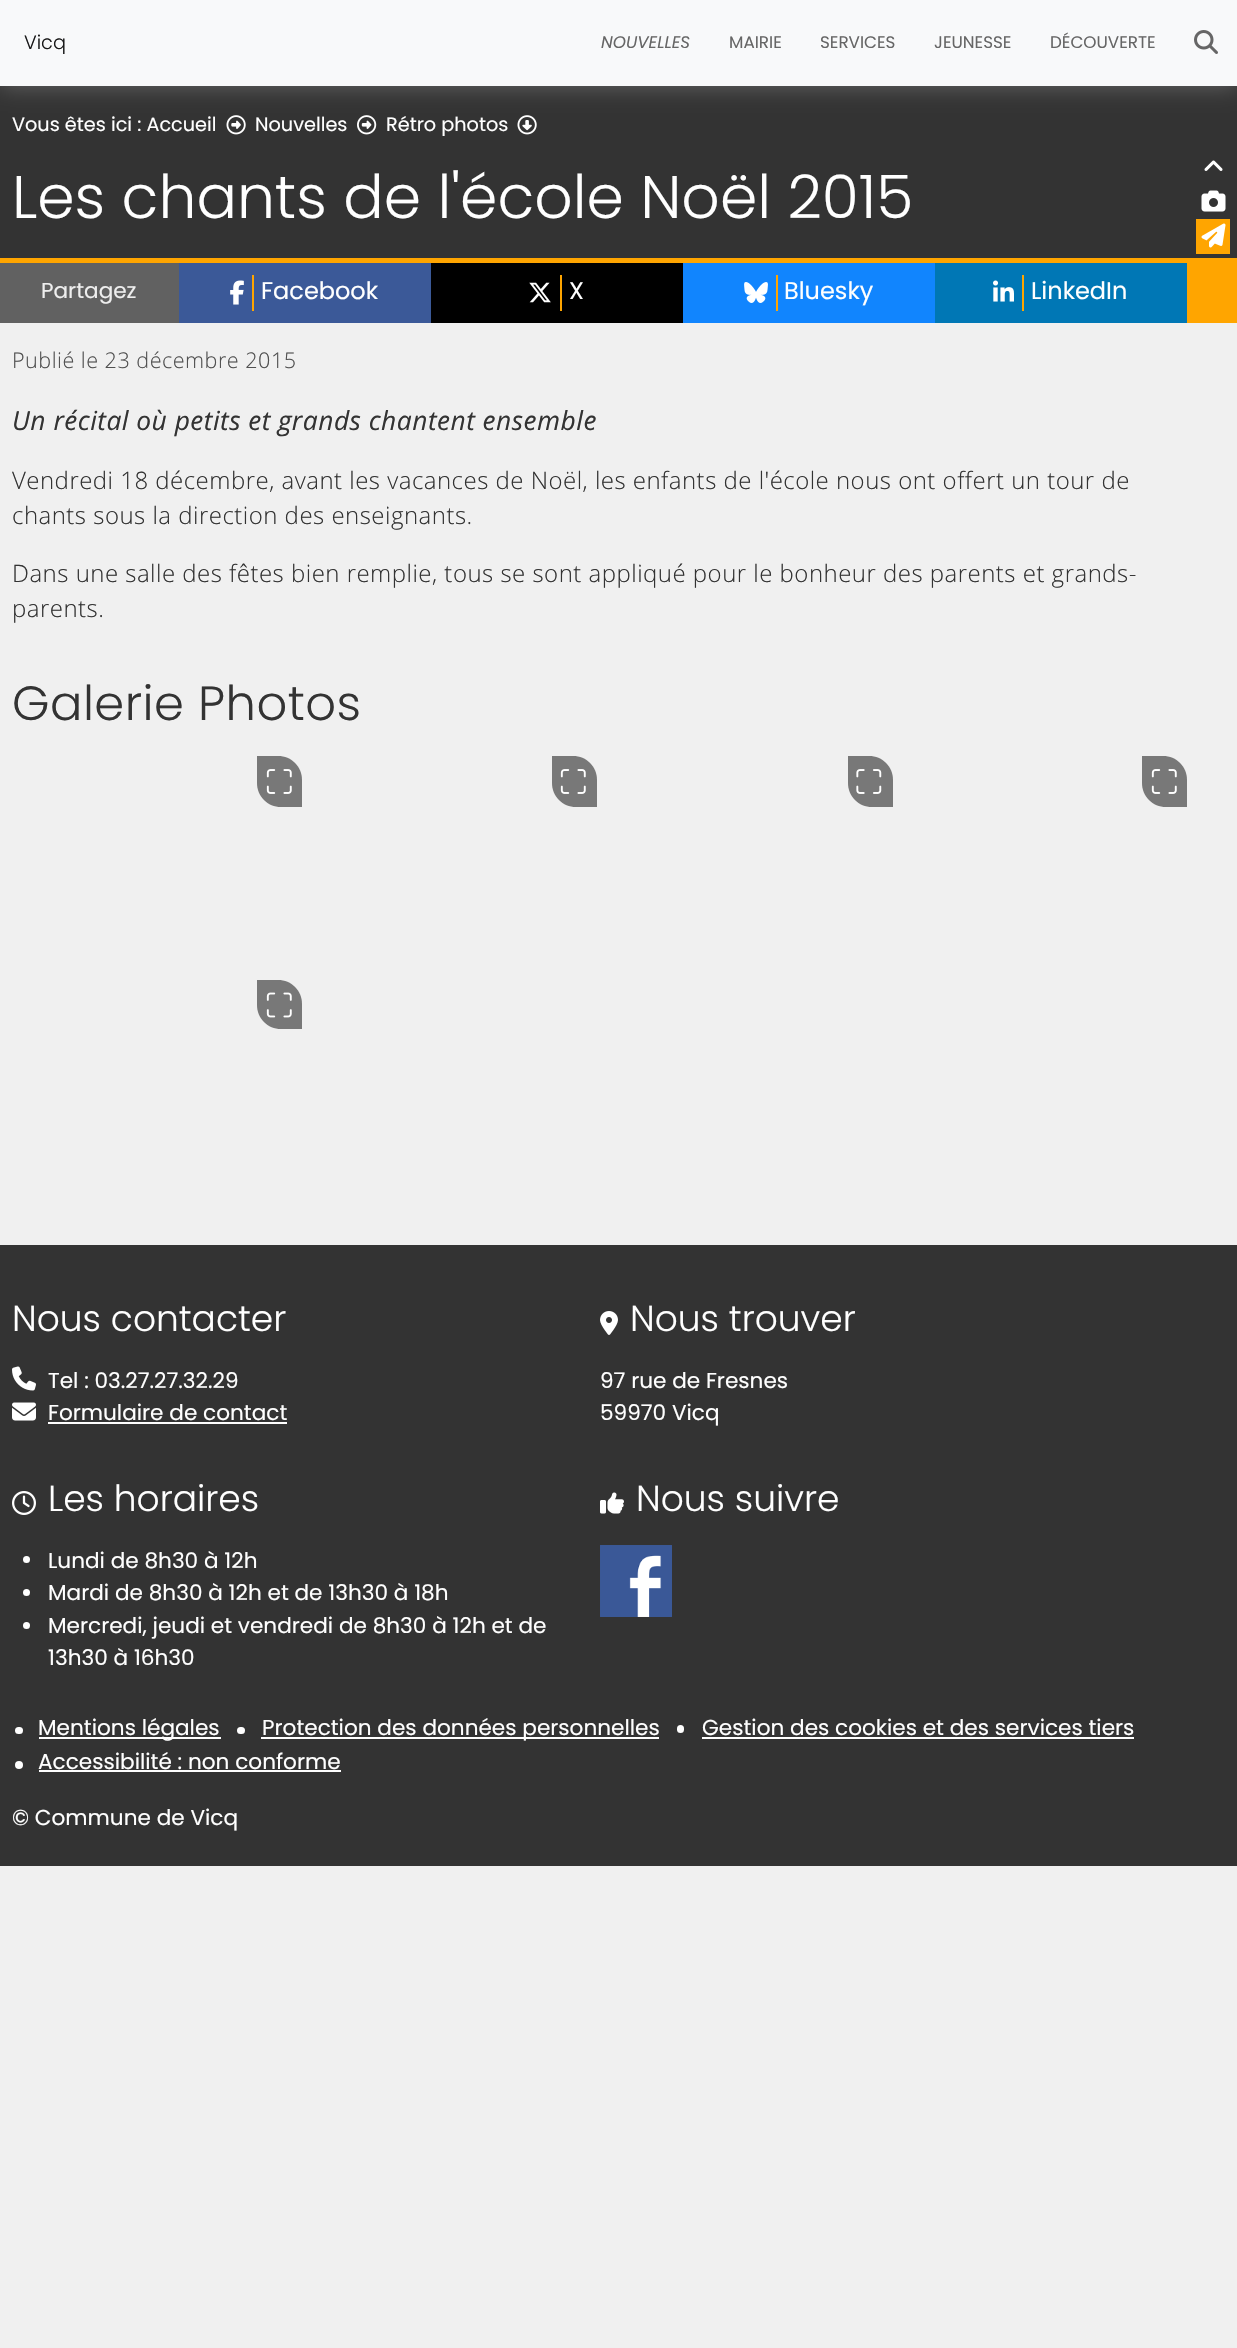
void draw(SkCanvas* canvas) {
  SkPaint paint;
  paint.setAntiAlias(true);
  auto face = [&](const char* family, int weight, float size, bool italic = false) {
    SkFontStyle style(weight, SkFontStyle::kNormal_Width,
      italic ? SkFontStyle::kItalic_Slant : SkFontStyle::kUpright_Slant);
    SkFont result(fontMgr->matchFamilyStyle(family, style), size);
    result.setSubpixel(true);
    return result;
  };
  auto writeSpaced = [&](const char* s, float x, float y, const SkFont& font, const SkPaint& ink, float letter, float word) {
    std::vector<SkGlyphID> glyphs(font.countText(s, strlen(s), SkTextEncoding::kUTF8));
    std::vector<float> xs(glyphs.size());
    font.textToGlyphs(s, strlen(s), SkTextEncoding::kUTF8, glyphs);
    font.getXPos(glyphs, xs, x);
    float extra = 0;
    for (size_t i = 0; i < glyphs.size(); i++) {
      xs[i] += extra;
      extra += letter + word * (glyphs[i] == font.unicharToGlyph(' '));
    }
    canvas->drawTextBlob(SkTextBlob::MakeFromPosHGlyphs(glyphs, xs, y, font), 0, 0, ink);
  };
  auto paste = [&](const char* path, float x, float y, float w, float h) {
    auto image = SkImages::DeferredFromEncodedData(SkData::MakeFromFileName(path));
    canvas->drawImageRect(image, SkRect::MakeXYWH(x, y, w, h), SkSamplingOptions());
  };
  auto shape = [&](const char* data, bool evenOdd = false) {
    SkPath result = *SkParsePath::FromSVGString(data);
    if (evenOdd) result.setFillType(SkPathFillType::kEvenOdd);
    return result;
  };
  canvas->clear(0xfff0f0f0);
  paint.setColor(0xff333333);
  canvas->drawRect(SkRect::MakeXYWH(0, 86, 1237, 172), paint);
  paste("img/2.png", 226, 115, 20, 20);
  paste("img/3.png", 357, 115, 20, 20);
  paste("img/4.png", 517, 115, 20, 20);
  paint.setColor(0xff666666);
  paint.setMaskFilter(SkMaskFilter::MakeBlur(kNormal_SkBlurStyle, 11));
  canvas->drawRect(SkRect::MakeXYWH(0, 0, 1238, 86), paint);
  paint.setMaskFilter(nullptr);
  paint.setColor(0xfff8f9fa);
  canvas->drawRect(SkRect::MakeXYWH(0, 0, 1237, 86), paint);
  paste("img/1.png", 1194, 30, 24, 24);
  {
    const struct { float x, y, w, h; SkColor color; } items[] = {
      {0, 258, 1187, 5, 0xffffa500},
      {1187, 258, 50, 65, 0xffffa500},
      {0, 263, 179, 60, 0xff616161},
      {179, 263, 252, 60, 0xff3b5998},
    };
    for (auto [x, y, w, h, color] : items) {
      paint.setColor(color);
      canvas->drawRect(SkRect::MakeXYWH(x, y, w, h), paint);
    }
  }
  paste("img/5.png", 230, 280, 14, 25);
  paint.setColor(0xffffa500);
  canvas->drawRect(SkRect::MakeXYWH(252, 275, 2, 36), paint);
  paint.setColor(0xff000000);
  canvas->drawRect(SkRect::MakeXYWH(431, 263, 252, 60), paint);
  paste("img/6.png", 529, 282, 22, 21);
  paint.setColor(0xffffa500);
  canvas->drawRect(SkRect::MakeXYWH(560, 275, 2, 36), paint);
  paint.setColor(0xff1185fe);
  canvas->drawRect(SkRect::MakeXYWH(683, 263, 252, 60), paint);
  paste("img/7.png", 744, 282, 24, 21);
  paint.setColor(0xffffa500);
  canvas->drawRect(SkRect::MakeXYWH(776, 275, 2, 36), paint);
  paint.setColor(0xff0077b5);
  canvas->drawRect(SkRect::MakeXYWH(935, 263, 252, 60), paint);
  paste("img/8.png", 993, 280, 21, 22);
  paint.setColor(0xffffa500);
  canvas->drawRect(SkRect::MakeXYWH(1022, 275, 2, 36), paint);
  paste("img/9.png", 1204, 160, 19, 11);
  paste("img/10.png", 1201, 190, 25, 22);
  canvas->drawRect(SkRect::MakeXYWH(1196, 219, 34, 35), paint);
  paste("img/11.png", 1201, 223, 25, 25);
  paint.setColor(0xff787878);
  canvas->drawPath(shape("M257 756H278C291.5 756 302 766.5 302 780V807H281C267.5 807 257 796.5 257 783Z"), paint);
  paste("img/12.png", 266, 769, 26, 25);
  canvas->drawPath(shape("M552 756H573C586.5 756 597 766.5 597 780V807H576C562.5 807 552 796.5 552 783Z"), paint);
  paste("img/12.png", 560, 769, 26, 25);
  canvas->drawPath(shape("M848 756H869C882.5 756 893 766.5 893 780V807H872C858.5 807 848 796.5 848 783Z"), paint);
  paste("img/13.png", 856, 769, 26, 25);
  canvas->drawPath(shape("M1142 756H1163C1176.5 756 1187 766.5 1187 780V807H1166C1152.5 807 1142 796.5 1142 783Z"), paint);
  paste("img/12.png", 1151, 769, 26, 25);
  canvas->drawPath(shape("M257 980H278C291.5 980 302 990.5 302 1004V1029H281C267.5 1029 257 1018.5 257 1005Z"), paint);
  paste("img/14.png", 266, 992, 26, 26);
  paint.setColor(0xff333333);
  canvas->drawRect(SkRect::MakeXYWH(0, 1245, 1237, 621), paint);
  paste("img/15.png", 12, 1366, 24, 25);
  paste("img/16.png", 12, 1402, 24, 19);
  paint.setColor(0xffffffff);
  canvas->drawRect(SkRect::MakeXYWH(48, 1422, 239, 2), paint);
  paste("img/17.png", 600, 1311, 18, 24);
  paste("img/18.png", 12, 1491, 24, 24);
  canvas->drawCircle(26.5f, 1559.5f, 3.5f, paint);
  canvas->drawCircle(26.5f, 1592.5f, 3.5f, paint);
  canvas->drawCircle(26.5f, 1625.5f, 3.5f, paint);
  paste("img/19.png", 600, 1492, 24, 22);
  paste("img/20.png", 600, 1545, 72, 72);
  canvas->drawRoundRect(SkRect::MakeXYWH(15, 1727, 8, 7), 3.5f, 3.5f, paint);
  canvas->drawRect(SkRect::MakeXYWH(39, 1737, 182, 2), paint);
  canvas->drawRoundRect(SkRect::MakeXYWH(237, 1727, 8, 7), 3.5f, 3.5f, paint);
  canvas->drawRect(SkRect::MakeXYWH(261, 1737, 398, 2), paint);
  canvas->drawRoundRect(SkRect::MakeXYWH(677, 1725, 7, 8), 3.5f, 3.5f, paint);
  canvas->drawRect(SkRect::MakeXYWH(702, 1737, 432, 2), paint);
  canvas->drawCircle(19, 1765, 4, paint);
  canvas->drawRect(SkRect::MakeXYWH(39, 1770, 302, 2), paint);
  auto f0 = face("Poppins", 300, 19.25f);
  paint.setColor(0xff191919);
  canvas->drawString("Vicq", 24, 49, f0, paint);
  auto f1 = face("Poppins", 400, 16.75f, true);
  paint.setColor(0xff666666);
  canvas->drawString("NOUVELLES", 601, 48, f1, paint);
  auto f2 = face("Poppins", 400, 16.75f);
  {
    const struct { const char* s; float x, y; } items[] = {
      {"MAIRIE", 729, 48},
      {"SERVICES", 820, 48},
      {"JEUNESSE", 934, 48},
      {"DÉCOUVERTE", 1050, 48},
    };
    for (auto [s, x, y] : items) {
      canvas->drawString(s, x, y, f2, paint);
    }
  }
  auto f3 = face("Poppins", 400, 19.25f);
  paint.setColor(0xffffffff);
  {
    const struct { const char* s; float x, y; } items[] = {
      {"Vous êtes ici : Accueil", 12, 131},
      {"Nouvelles", 255, 131},
      {"Rétro photos", 386, 131},
    };
    for (auto [s, x, y] : items) {
      canvas->drawString(s, x, y, f3, paint);
    }
  }
  auto f4 = face("Poppins", 300, 60);
  canvas->drawString("Les chants de l'école Noël 2015", 12, 218, f4, paint);
  auto f5 = face("Poppins", 400, 21.6f);
  paint.setColor(0xffeeeeee);
  canvas->drawString("Partagez", 41, 298, f5, paint);
  auto f6 = face("Poppins", 400, 24);
  paint.setColor(0xffffffff);
  {
    const struct { const char* s; float x, y; } items[] = {
      {"Facebook", 261, 299},
      {"X", 569, 299},
      {"Bluesky", 784, 299},
      {"LinkedIn", 1031, 299},
    };
    for (auto [s, x, y] : items) {
      canvas->drawString(s, x, y, f6, paint);
    }
  }
  auto f7 = face("Open Sans", 300, 21.6f);
  paint.setColor(0xff505050);
  writeSpaced("Publié le 23 décembre 2015", 12, 368, f7, paint, 0.48f, 0);
  auto f8 = face("Open Sans", 400, 26.4f, true);
  paint.setColor(0xff333333);
  writeSpaced("Un récital où petits et grands chantent ensemble", 12, 430, f8, paint, 0.48f, 0);
  auto f9 = face("Open Sans", 300, 24);
  {
    const struct { const char* s; float x, y; } items[] = {
      {"Vendredi 18 décembre, avant les vacances de Noël, les enfants de l'école nous ont offert un tour de", 12, 489},
      {"chants sous la direction des enseignants.", 12, 524},
      {"Dans une salle des fêtes bien remplie, tous se sont appliqué pour le bonheur des parents et grands-", 12, 582},
      {"parents.", 12, 617},
    };
    for (auto [s, x, y] : items) {
      writeSpaced(s, x, y, f9, paint, 0.48f, 0);
    }
  }
  auto f10 = face("Poppins", 300, 48);
  writeSpaced("Galerie Photos", 12, 720, f10, paint, 0.48f, 0);
  auto f11 = face("Poppins", 300, 36);
  paint.setColor(0xffffffff);
  canvas->drawString("Nous contacter", 12, 1331, f11, paint);
  canvas->drawString("Tel : 03.27.27.32.29", 48, 1388, f5, paint);
  canvas->drawString("Formulaire de contact", 48, 1420, f5, paint);
  canvas->drawString("Nous trouver", 630, 1331, f11, paint);
  canvas->drawString("97 rue de Fresnes", 600, 1388, f5, paint);
  canvas->drawString("59970 Vicq", 600, 1420, f5, paint);
  canvas->drawString("Les horaires", 48, 1511, f11, paint);
  {
    const struct { const char* s; float x, y; } items[] = {
      {"Lundi de 8h30 à 12h", 48, 1568},
      {"Mardi de 8h30 à 12h et de 13h30 à 18h", 48, 1600},
      {"Mercredi, jeudi et vendredi de 8h30 à 12h et de", 48, 1633},
      {"13h30 à 16h30", 48, 1665},
    };
    for (auto [s, x, y] : items) {
      canvas->drawString(s, x, y, f5, paint);
    }
  }
  canvas->drawString("Nous suivre", 636, 1511, f11, paint);
  {
    const struct { const char* s; float x, y; } items[] = {
      {"Mentions légales", 38, 1735},
      {"Protection des données personnelles", 262, 1735},
      {"Gestion des cookies et des services tiers", 702, 1735},
      {"Accessibilité : non conforme", 38, 1769},
      {"© Commune de Vicq", 12, 1825},
    };
    for (auto [s, x, y] : items) {
      canvas->drawString(s, x, y, f5, paint);
    }
  }
}
